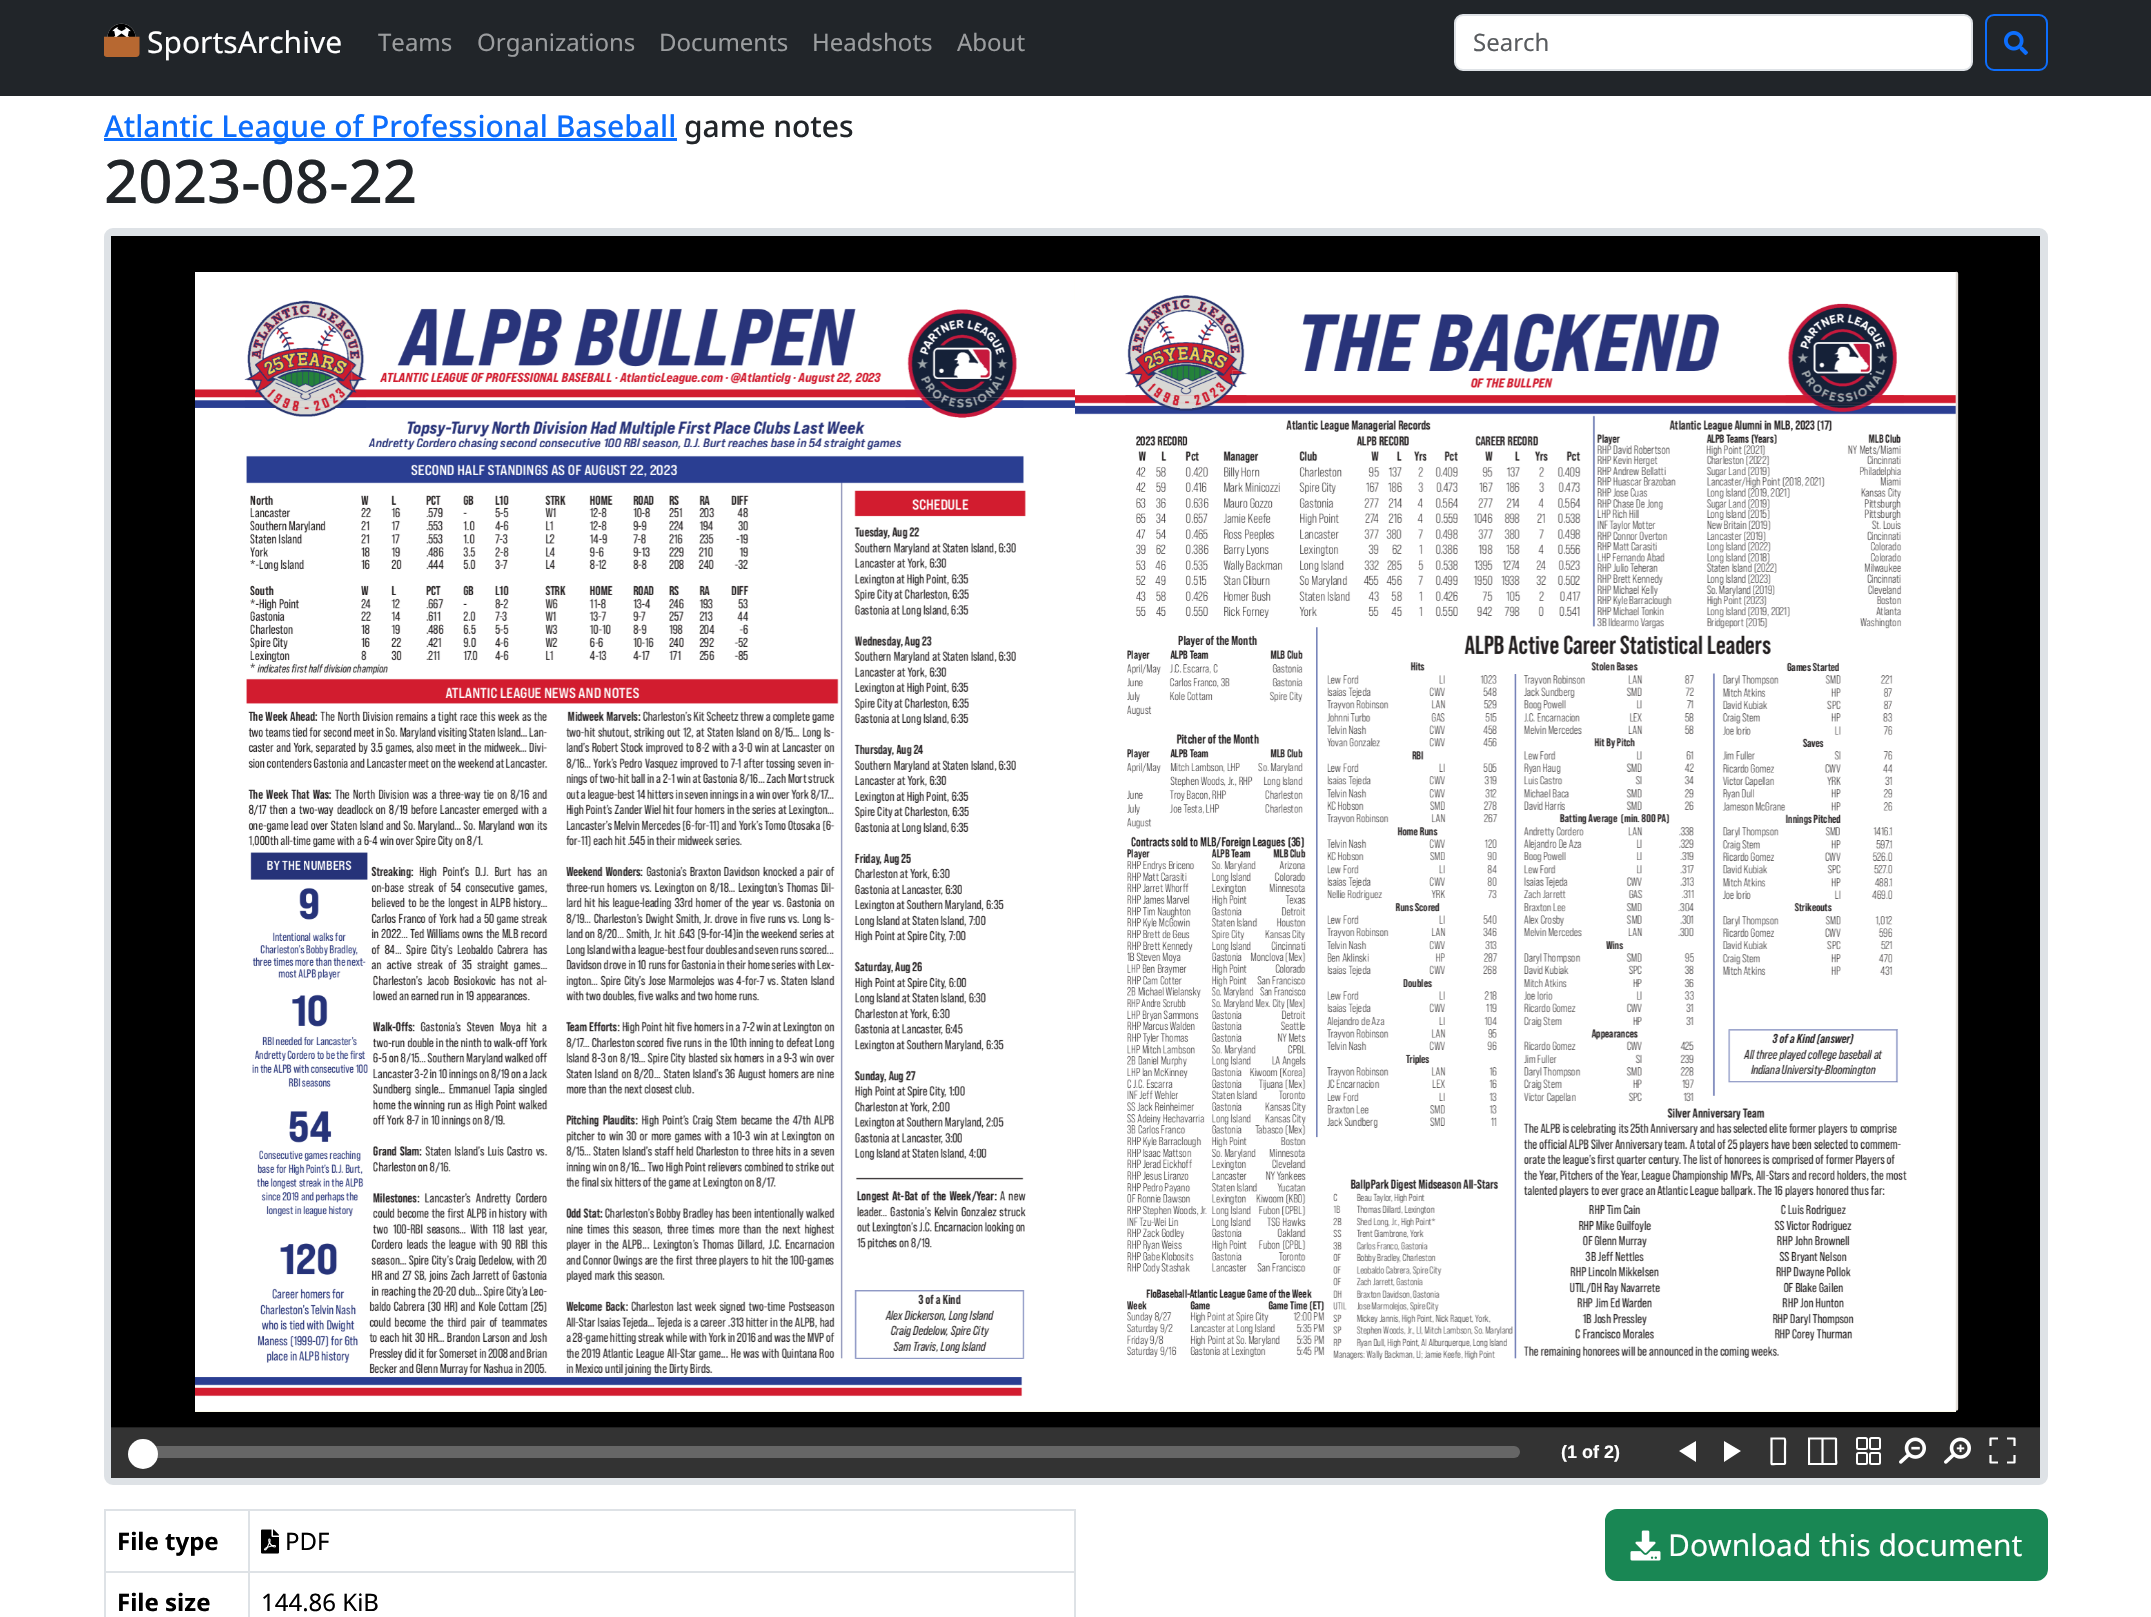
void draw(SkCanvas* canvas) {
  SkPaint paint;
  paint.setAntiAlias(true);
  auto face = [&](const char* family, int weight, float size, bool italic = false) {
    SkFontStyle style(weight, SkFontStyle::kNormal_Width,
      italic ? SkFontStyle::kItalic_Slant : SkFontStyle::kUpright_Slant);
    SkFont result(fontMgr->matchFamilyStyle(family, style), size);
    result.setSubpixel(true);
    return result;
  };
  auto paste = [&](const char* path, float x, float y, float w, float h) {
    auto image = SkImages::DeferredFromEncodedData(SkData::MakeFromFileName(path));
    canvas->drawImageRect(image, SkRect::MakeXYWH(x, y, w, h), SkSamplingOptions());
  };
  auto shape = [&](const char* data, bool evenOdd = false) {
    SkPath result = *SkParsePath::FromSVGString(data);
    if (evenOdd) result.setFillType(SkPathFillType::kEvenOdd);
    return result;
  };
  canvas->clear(0xff212529);
  paste("img/1.png", 104, 23, 36, 34);
  paint.setColor(0xffffffff);
  canvas->drawRoundRect(SkRect::MakeXYWH(1455, 15, 517, 55), 8, 8, paint);
  paint.setStroke(true);
  paint.setStrokeWidth(2);
  paint.setColor(0xffdee2e6);
  canvas->drawRoundRect(SkRect::MakeXYWH(1455, 15, 517, 55), 8, 8, paint);
  paint.setColor(0xff0d6efd);
  canvas->drawRoundRect(SkRect::MakeXYWH(1986, 15, 61, 55), 8, 8, paint);
  paste("img/2.png", 2004, 31, 24, 24);
  paint.setStroke(false);
  paint.setColor(0xffffffff);
  canvas->drawRect(SkRect::MakeXYWH(0, 96, 2151, 1521), paint);
  paint.setColor(0xff0d6efd);
  canvas->drawRect(SkRect::MakeXYWH(104, 138, 573, 3), paint);
  paint.setStroke(true);
  paint.setStrokeWidth(8);
  paint.setColor(0xffdee2e6);
  canvas->drawRoundRect(SkRect::MakeXYWH(108, 232, 1936, 1249), 5, 5, paint);
  paint.setStroke(false);
  paint.setColor(0xff000000);
  canvas->drawRect(SkRect::MakeXYWH(111, 236, 1929, 1191), paint);
  paint.setColor(0xfffefdeb);
  canvas->drawRect(SkRect::MakeXYWH(195, 272, 1761, 1140), paint);
  paste("img/3.png", 195, 272, 880, 1139);
  paste("img/4.png", 195, 300, 880, 1111);
  paste("img/6.png", 1955, 272, 1, 1139);
  paste("img/7.png", 1075, 272, 881, 1139);
  paste("img/5.png", 1955, 271, 4, 1140);
  paint.setColor(0xff222222);
  canvas->drawRect(SkRect::MakeXYWH(111, 1427, 1929, 1), paint);
  paint.setColor(0xff333333);
  canvas->drawRect(SkRect::MakeXYWH(111, 1428, 1929, 50), paint);
  paint.setColor(0xff666666);
  canvas->drawRoundRect(SkRect::MakeXYWH(141, 1446, 1379, 12), 6, 6, paint);
  paint.setColor(0xffffffff);
  canvas->drawCircle(143, 1454, 15, paint);
  canvas->drawPath(shape("M1679 1451L1696 1462V1441ZM1741 1451L1724 1462V1441Z", true), paint);
  paint.setStroke(true);
  paint.setStrokeWidth(2.2f);
  canvas->drawPath(shape("M1784.5 1438.5C1785.5 1438.5 1785 1446 1785 1447V1459.5C1785 1464 1786 1464 1782.5 1464H1776C1770.5 1464 1771.5 1465.5 1771.5 1459.5V1438.5H1772Z"), paint);
  canvas->save();
  canvas->clipRect(SkRect::MakeXYWH(1808, 1437, 30, 29));
  canvas->drawPath(shape("M1835.5 1438.5L1836 1439V1459.5C1836 1461 1837 1464 1835.5 1464H1809V1438.5H1809.5Z"), paint);
  canvas->restore();
  paint.setStrokeCap(SkPaint::kSquare_Cap);
  canvas->drawPath(shape("M1822.5 1440V1462.5"), paint);
  paint.setStrokeWidth(2);
  paint.setStrokeCap(SkPaint::kButt_Cap);
  canvas->drawRoundRect(SkRect::MakeXYWH(1857, 1438, 10, 11), 1.5f, 1.5f, paint);
  canvas->drawRoundRect(SkRect::MakeXYWH(1857, 1453, 10, 11), 1.5f, 1.5f, paint);
  canvas->drawRoundRect(SkRect::MakeXYWH(1870, 1438, 10, 11), 1.5f, 1.5f, paint);
  canvas->drawRoundRect(SkRect::MakeXYWH(1870, 1453, 10, 11), 1.5f, 1.5f, paint);
  paste("img/8.png", 1899, 1437, 27, 27);
  paste("img/9.png", 1944, 1437, 27, 27);
  paint.setStrokeWidth(2.2f);
  paint.setStrokeJoin(SkPaint::kRound_Join);
  canvas->drawPath(shape("M2007 1438.5H2014.5V1446M2007 1462.5H2014.5V1455M1998 1438.5H1990.5V1446M1998 1462.5H1990.5V1455"), paint);
  paint.setStroke(false);
  paint.setColor(0xffdee2e6);
  canvas->drawRect(SkRect::MakeXYWH(104, 1509, 972, 2), paint);
  paste("img/10.png", 261, 1529, 18, 25);
  {
    const struct { float x, y, w, h; SkColor color; } items[] = {
      {104, 1571, 972, 2, 0xffdee2e6},
      {104, 1509, 2, 108, 0xffdee2e6},
      {1074, 1509, 2, 108, 0xffdee2e6},
      {248, 1509, 2, 108, 0xffdee2e6},
    };
    for (auto [x, y, w, h, color] : items) {
      paint.setColor(color);
      canvas->drawRect(SkRect::MakeXYWH(x, y, w, h), paint);
    }
  }
  paint.setColor(0xff198754);
  canvas->drawRoundRect(SkRect::MakeXYWH(1606, 1510, 441, 70), 11, 11, paint);
  paint.setStroke(true);
  paint.setStrokeWidth(2);
  paint.setStrokeJoin(SkPaint::kMiter_Join);
  canvas->drawRoundRect(SkRect::MakeXYWH(1606, 1510, 441, 70), 11, 11, paint);
  paste("img/11.png", 1630, 1530, 31, 31);
  auto f0 = face("Noto Sans", 400, 30);
  paint.setStroke(false);
  paint.setColor(0xffffffff);
  canvas->drawString("SportsArchive", 147, 53, f0, paint);
  auto f1 = face("Noto Sans", 400, 24);
  paint.setColor(0xff9b9d9f);
  {
    const struct { const char* s; float x, y; } items[] = {
      {"Teams", 378, 51},
      {"Organizations", 477, 51},
      {"Documents", 659, 51},
      {"Headshots", 812, 51},
      {"About", 957, 51},
    };
    for (auto [s, x, y] : items) {
      canvas->drawString(s, x, y, f1, paint);
    }
  }
  paint.setColor(0xff595c5f);
  canvas->drawString("Search", 1473, 51, f1, paint);
  auto f2 = face("Noto Sans", 500, 30);
  paint.setColor(0xff0d6efd);
  canvas->drawString("Atlantic League of Professional Baseball", 104, 137, f2, paint);
  paint.setColor(0xff212529);
  canvas->drawString("game notes", 684, 137, f2, paint);
  auto f3 = face("Noto Sans", 500, 60);
  canvas->drawString("2023-08-22", 104, 203, f3, paint);
  auto f4 = face("Liberation Sans", 700, 18);
  paint.setColor(0xffffffff);
  canvas->drawString("(1 of 2)", 1561, 1458, f4, paint);
  auto f5 = face("Noto Sans", 700, 24);
  paint.setColor(0xff000000);
  canvas->drawString("File type", 117, 1550, f5, paint);
  canvas->drawString("PDF", 285, 1550, f1, paint);
  canvas->drawString("File size", 117, 1611, f5, paint);
  canvas->drawString("144.86 KiB", 261, 1611, f1, paint);
  paint.setColor(0xffffffff);
  canvas->drawString("Download this document", 1668, 1556, f0, paint);
}
